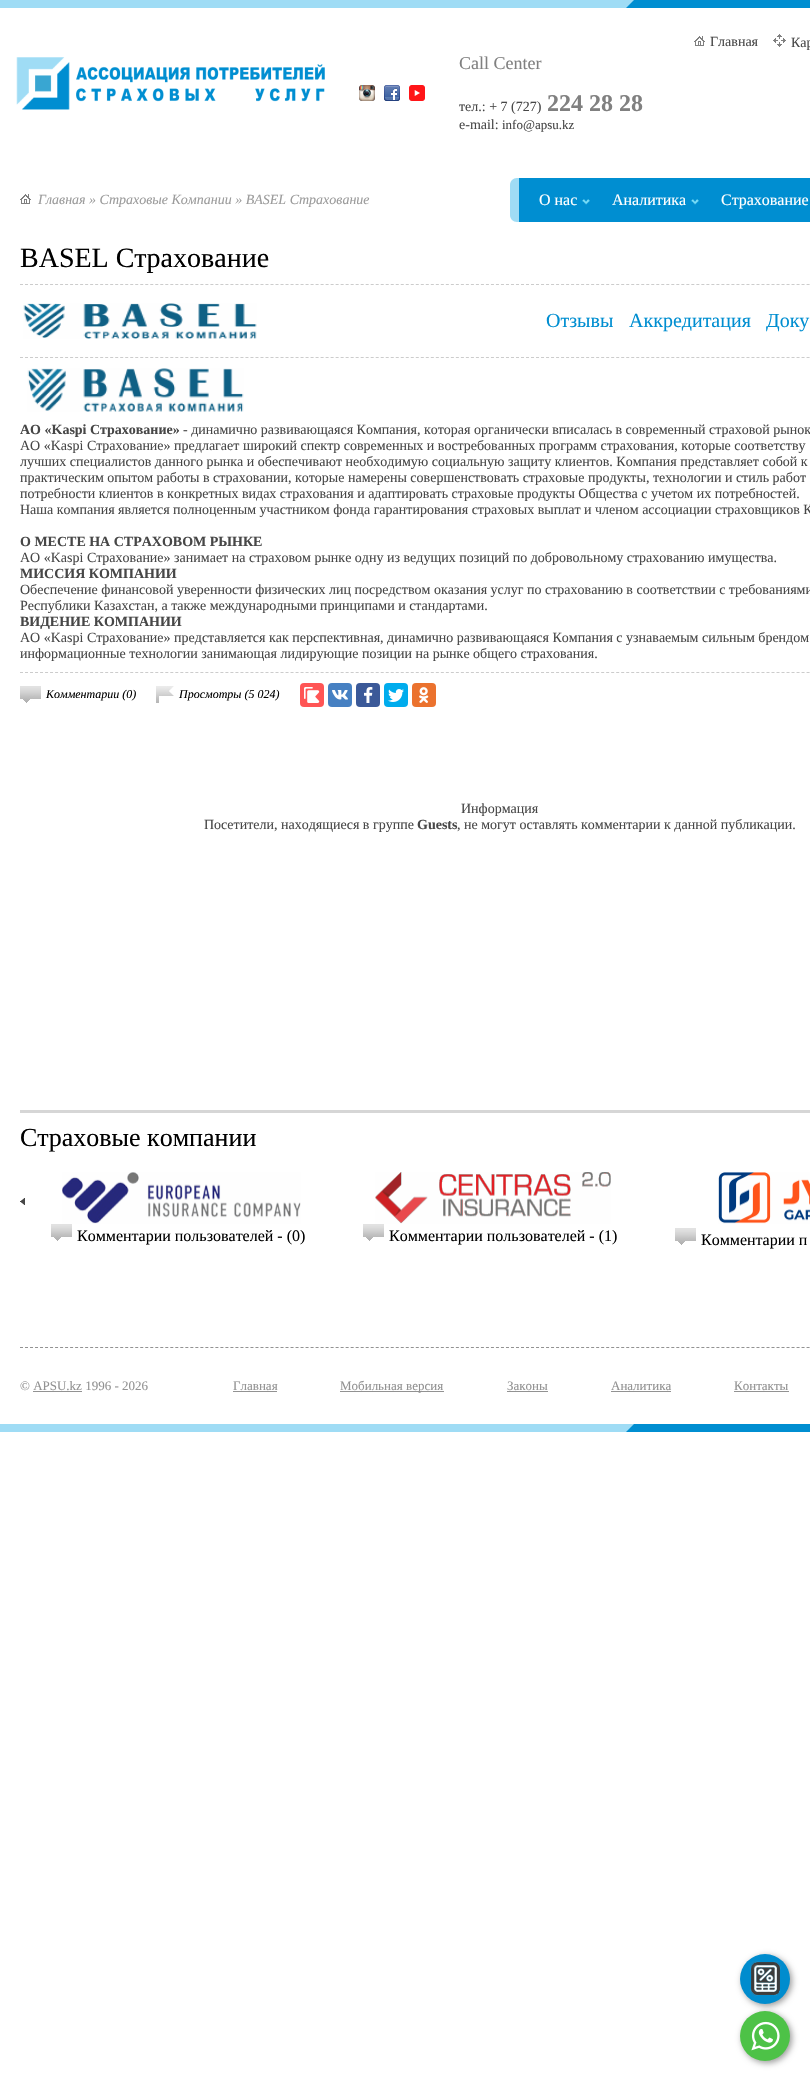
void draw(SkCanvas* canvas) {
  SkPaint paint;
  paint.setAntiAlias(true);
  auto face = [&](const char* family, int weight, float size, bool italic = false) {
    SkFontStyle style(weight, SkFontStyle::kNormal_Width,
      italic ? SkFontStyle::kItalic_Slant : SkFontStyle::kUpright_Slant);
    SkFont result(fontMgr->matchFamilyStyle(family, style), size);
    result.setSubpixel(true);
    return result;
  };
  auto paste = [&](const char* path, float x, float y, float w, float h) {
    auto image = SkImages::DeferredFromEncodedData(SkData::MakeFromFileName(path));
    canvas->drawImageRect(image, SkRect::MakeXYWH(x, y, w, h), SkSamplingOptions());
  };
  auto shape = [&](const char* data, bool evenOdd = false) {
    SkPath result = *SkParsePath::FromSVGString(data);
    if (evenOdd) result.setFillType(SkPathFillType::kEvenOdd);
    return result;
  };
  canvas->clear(0xffffffff);
  paint.setColor(0xff9fdcf5);
  canvas->drawRect(SkRect::MakeXYWH(0, 0, 615, 8), paint);
  paste("img/1.png", 615, 0, 30, 8);
  paint.setColor(0xff008ed1);
  canvas->drawRect(SkRect::MakeXYWH(645, 0, 165, 8), paint);
  paste("img/2.png", 694, 36, 11, 10);
  paste("img/3.png", 773, 34, 13, 13);
  paste("img/4.png", 16, 57, 309, 53);
  paste("img/5.png", 359, 85, 16, 16);
  paste("img/6.png", 384, 85, 16, 16);
  paste("img/7.png", 409, 85, 16, 16);
  paste("img/2.png", 20, 194, 11, 10);
  paint.setColor(0xff9fdcf5);
  canvas->drawPath(shape("M517 178H519V222H517C513 222 510 219 510 215V185C510 181 513 178 517 178Z"), paint);
  paint.setColor(0xff008ed1);
  canvas->drawRect(SkRect::MakeXYWH(519, 178, 291, 44), paint);
  paste("img/8.png", 582, 199, 8, 6);
  paste("img/9.png", 691, 199, 8, 6);
  paint.setStroke(true);
  paint.setStrokeWidth(1);
  paint.setColor(0xffcccccc);
  paint.setPathEffect(SkDashPathEffect::Make({{3, 2.01f}}, 0));
  canvas->drawPath(shape("M20 284.5H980"), paint);
  paint.setPathEffect(nullptr);
  paste("img/10.png", 23, 303, 234, 36);
  paint.setPathEffect(SkDashPathEffect::Make({{3, 2.01f}}, 0));
  canvas->drawPath(shape("M20 357.5H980"), paint);
  paint.setPathEffect(nullptr);
  paste("img/11.png", 27, 368, 217, 44);
  paint.setPathEffect(SkDashPathEffect::Make({{3, 2.01f}}, 0));
  canvas->drawPath(shape("M20 672.5H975"), paint);
  paint.setPathEffect(nullptr);
  paste("img/12.png", 20, 686, 21, 17);
  paste("img/13.png", 156, 686, 18, 17);
  paint.setStroke(false);
  paint.setColor(0xffff5555);
  canvas->drawRoundRect(SkRect::MakeXYWH(300, 683, 24, 24), 4, 4, paint);
  paste("img/14.png", 304, 687, 16, 16);
  paint.setColor(0xff4680c2);
  canvas->drawRoundRect(SkRect::MakeXYWH(328, 683, 24, 24), 4, 4, paint);
  paste("img/15.png", 332, 690, 16, 10);
  paint.setColor(0xff3b5998);
  canvas->drawRoundRect(SkRect::MakeXYWH(356, 683, 24, 24), 4, 4, paint);
  paste("img/16.png", 364, 687, 9, 16);
  paint.setColor(0xff00aced);
  canvas->drawRoundRect(SkRect::MakeXYWH(384, 683, 24, 24), 4, 4, paint);
  paste("img/17.png", 388, 689, 16, 13);
  paint.setColor(0xffeb722e);
  canvas->drawRoundRect(SkRect::MakeXYWH(412, 683, 24, 24), 4, 4, paint);
  paste("img/18.png", 419, 687, 10, 16);
  paint.setColor(0xffd6d6d6);
  canvas->drawRect(SkRect::MakeXYWH(20, 1110, 790, 3), paint);
  paste("img/19.png", 20, 1198, 5, 7);
  paste("img/20.png", 62, 1172, 239, 52);
  paste("img/12.png", 51, 1224, 21, 17);
  paste("img/21.png", 375, 1172, 236, 52);
  paste("img/12.png", 363, 1224, 21, 17);
  paste("img/22.png", 718, 1172, 92, 52);
  paste("img/12.png", 675, 1228, 21, 17);
  paint.setStroke(true);
  paint.setColor(0xff929292);
  paint.setPathEffect(SkDashPathEffect::Make({{3, 2.01f}}, 0));
  canvas->drawPath(shape("M20 1347.5H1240"), paint);
  paint.setPathEffect(nullptr);
  paint.setStroke(false);
  {
    const struct { float x, y, w, h; SkColor color; } items[] = {
      {33, 1391, 49, 1, 0xff929292},
      {233, 1391, 44, 1, 0xff929292},
      {340, 1391, 104, 1, 0xff929292},
      {507, 1391, 41, 1, 0xff929292},
      {611, 1391, 60, 1, 0xff929292},
      {734, 1391, 55, 1, 0xff929292},
      {0, 1424, 615, 8, 0xff9fdcf5},
    };
    for (auto [x, y, w, h, color] : items) {
      paint.setColor(color);
      canvas->drawRect(SkRect::MakeXYWH(x, y, w, h), paint);
    }
  }
  paste("img/1.png", 615, 1424, 30, 8);
  paint.setColor(0xff008ed1);
  canvas->drawRect(SkRect::MakeXYWH(645, 1424, 165, 8), paint);
  paint.setColor(0x66000000);
  paint.setMaskFilter(SkMaskFilter::MakeBlur(kNormal_SkBlurStyle, 3));
  canvas->drawRoundRect(SkRect::MakeXYWH(742, 1956, 50, 50), 25, 25, paint);
  paint.setMaskFilter(nullptr);
  paste("img/23.png", 740, 1954, 50, 50);
  paint.setMaskFilter(SkMaskFilter::MakeBlur(kNormal_SkBlurStyle, 3));
  canvas->drawRoundRect(SkRect::MakeXYWH(742, 2013, 50, 50), 25, 25, paint);
  paint.setMaskFilter(nullptr);
  paint.setColor(0xff4dc247);
  canvas->drawCircle(765, 2036, 25, paint);
  paste("img/24.png", 751, 2021, 29, 30);
  auto f0 = face("Liberation Serif", 400, 14);
  paint.setColor(0xff474747);
  canvas->drawString("Главная", 710, 46, f0, paint);
  canvas->drawString("Кар", 791, 47, f0, paint);
  auto f1 = face("Liberation Serif", 400, 18);
  paint.setColor(0xff808080);
  canvas->drawString("Call Center", 459, 69, f1, paint);
  paint.setColor(0xff474747);
  canvas->drawString("тел.: + 7 (727)", 459, 111, f0, paint);
  auto f2 = face("Liberation Serif", 700, 24);
  paint.setColor(0xff808080);
  canvas->drawString("224 28 28", 547, 111, f2, paint);
  paint.setColor(0xff474747);
  canvas->drawString("e-mail:", 459, 129, f0, paint);
  auto f3 = face("Liberation Serif", 400, 13);
  canvas->drawString("info@apsu.kz", 502, 129, f3, paint);
  auto f4 = face("Liberation Serif", 400, 14, true);
  paint.setColor(0xff9b9b9b);
  canvas->drawString("Главная » Страховые Компании » BASEL Страхование", 38, 204, f4, paint);
  auto f5 = face("Liberation Serif", 400, 16);
  paint.setColor(0xffffffff);
  {
    const struct { const char* s; float x, y; } items[] = {
      {"О нас", 539, 205},
      {"Аналитика", 612, 205},
      {"Страхование", 721, 205},
    };
    for (auto [s, x, y] : items) {
      canvas->drawString(s, x, y, f5, paint);
    }
  }
  auto f6 = face("Liberation Serif", 400, 28);
  paint.setColor(0xff000000);
  canvas->drawString("BASEL Страхование", 20, 267, f6, paint);
  auto f7 = face("Liberation Serif", 400, 20);
  paint.setColor(0xff008ed1);
  {
    const struct { const char* s; float x, y; } items[] = {
      {"Отзывы", 546, 327},
      {"Аккредитация", 629, 327},
      {"Доку", 766, 327},
    };
    for (auto [s, x, y] : items) {
      canvas->drawString(s, x, y, f7, paint);
    }
  }
  auto f8 = face("Liberation Serif", 700, 14);
  paint.setColor(0xff474747);
  canvas->drawString("АО «Kaspi Страхование»", 20, 434, f8, paint);
  {
    const struct { const char* s; float x, y; } items[] = {
      {"- динамично развивающаяся Компания, которая органически вписалась в современный страховой рынок", 183, 434},
      {"АО «Kaspi Страхование» предлагает широкий спектр современных и востребованных программ страхования, которые соответству", 20, 450},
      {"лучших специалистов данного рынка и обеспечивают необходимую социальную защиту клиентов. Компания представляет собой к", 20, 466},
      {"практическим опытом работы в страховании, которые намерены совершенствовать страховые продукты, технологии и стиль работ", 20, 482},
      {"потребности клиентов в конкретных видах страхования и адаптировать страховые продукты Общества с учетом их потребностей.", 20, 498},
      {"Наша компания является полноценным участником фонда гарантирования страховых выплат и членом ассоциации страховщиков К", 20, 514},
    };
    for (auto [s, x, y] : items) {
      canvas->drawString(s, x, y, f0, paint);
    }
  }
  canvas->drawString("О МЕСТЕ НА СТРАХОВОМ РЫНКЕ", 20, 546, f8, paint);
  canvas->drawString("АО «Kaspi Страхование» занимает на страховом рынке одну из ведущих позиций по добровольному страхованию имущества.", 20, 562, f0, paint);
  canvas->drawString("МИССИЯ КОМПАНИИ", 20, 578, f8, paint);
  canvas->drawString("Обеспечение финансовой уверенности физических лиц посредством оказания услуг по страхованию в соответствии с требованиями", 20, 594, f0, paint);
  canvas->drawString("Республики Казахстан, а также международными принципами и стандартами.", 20, 610, f0, paint);
  canvas->drawString("ВИДЕНИЕ КОМПАНИИ", 20, 626, f8, paint);
  canvas->drawString("АО «Kaspi Страхование» представляется как перспективная, динамично развивающаяся Компания с узнаваемым сильным брендом", 20, 642, f0, paint);
  canvas->drawString("информационные технологии занимающая лидирующие позиции на рынке общего страхования.", 20, 658, f0, paint);
  auto f9 = face("Liberation Serif", 400, 12, true);
  paint.setColor(0xff000000);
  canvas->drawString("Комментарии (0)", 46, 698, f9, paint);
  canvas->drawString("Просмотры (5 024)", 179, 698, f9, paint);
  paint.setColor(0xff474747);
  canvas->drawString("Информация", 461, 813, f0, paint);
  canvas->drawString("Посетители, находящиеся в группе", 204, 829, f0, paint);
  canvas->drawString("Guests", 417, 829, f8, paint);
  canvas->drawString(", не могут оставлять комментарии к данной публикации.", 457, 829, f0, paint);
  auto f10 = face("Liberation Serif", 400, 26);
  paint.setColor(0xff000000);
  canvas->drawString("Страховые компании", 20, 1146, f10, paint);
  {
    const struct { const char* s; float x, y; } items[] = {
      {"Комментарии пользователей - (0)", 77, 1241},
      {"Комментарии пользователей - (1)", 389, 1241},
      {"Комментарии п", 701, 1245},
    };
    for (auto [s, x, y] : items) {
      canvas->drawString(s, x, y, f5, paint);
    }
  }
  paint.setColor(0xff929292);
  {
    const struct { const char* s; float x, y; } items[] = {
      {"© APSU.kz 1996 - 2026", 20, 1390},
      {"Главная", 233, 1390},
      {"Мобильная версия", 340, 1390},
      {"Законы", 507, 1390},
      {"Аналитика", 611, 1390},
      {"Контакты", 734, 1390},
    };
    for (auto [s, x, y] : items) {
      canvas->drawString(s, x, y, f3, paint);
    }
  }
}
